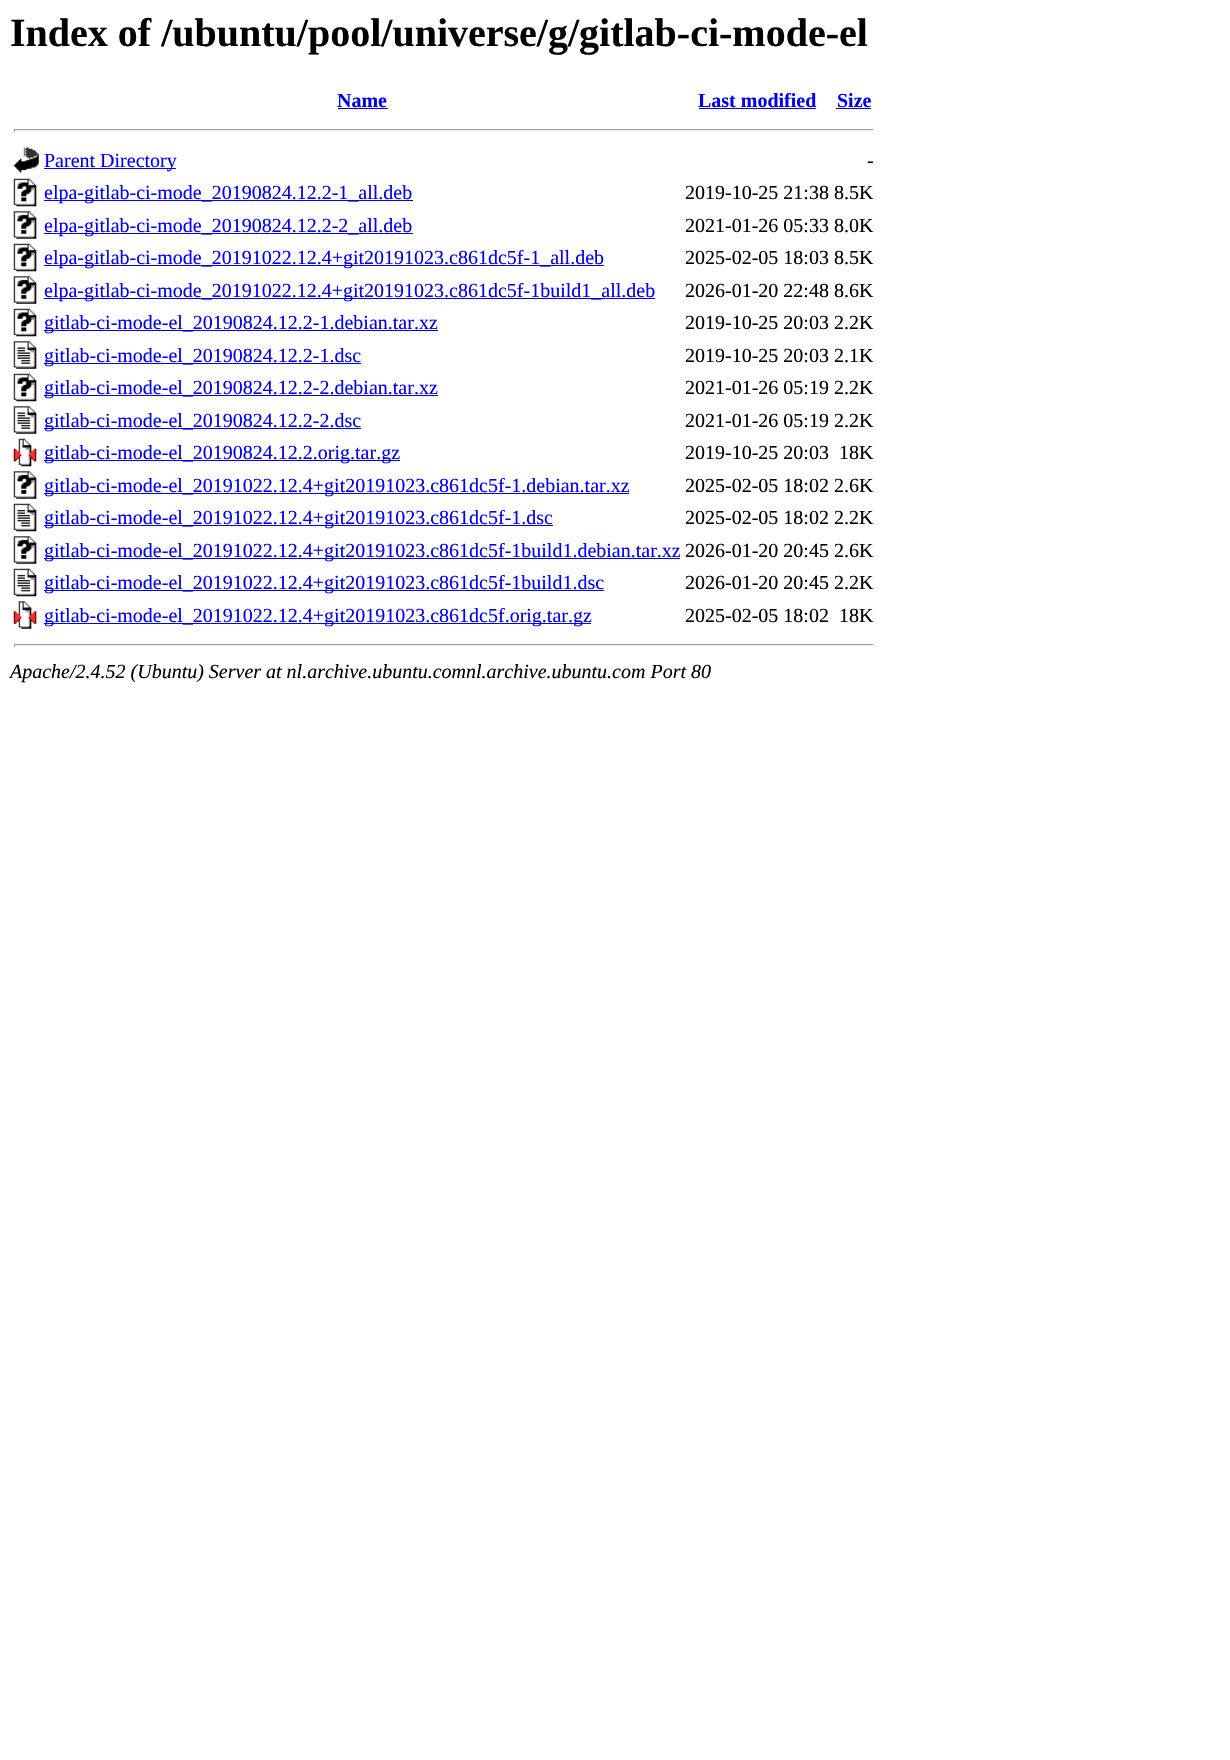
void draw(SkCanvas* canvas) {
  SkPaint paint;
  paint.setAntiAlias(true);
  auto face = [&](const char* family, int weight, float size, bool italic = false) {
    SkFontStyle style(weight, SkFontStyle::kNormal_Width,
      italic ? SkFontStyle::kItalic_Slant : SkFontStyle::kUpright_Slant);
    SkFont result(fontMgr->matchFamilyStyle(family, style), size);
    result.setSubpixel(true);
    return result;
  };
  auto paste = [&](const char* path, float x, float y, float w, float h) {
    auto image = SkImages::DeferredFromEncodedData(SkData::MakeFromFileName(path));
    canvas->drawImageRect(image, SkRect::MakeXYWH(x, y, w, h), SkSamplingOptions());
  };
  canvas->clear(0xffffffff);
  {
    const struct { float x, y, w, h; SkColor color; } items[] = {
      {338, 108, 50, 1, 0xff0000ee},
      {699, 108, 117, 1, 0xff0000ee},
      {836, 108, 35, 1, 0xff0000ee},
      {14, 129, 860, 1, 0xff9f9f9f},
      {873, 129, 1, 3, 0xffeeeeee},
      {14, 130, 860, 1, 0xffeeeeee},
      {14, 129, 1, 3, 0xff9f9f9f},
    };
    for (auto [x, y, w, h, color] : items) {
      paint.setColor(color);
      canvas->drawRect(SkRect::MakeXYWH(x, y, w, h), paint);
    }
  }
  paste("img/1.png", 13, 147, 26, 26);
  paint.setColor(0xff0000ee);
  canvas->drawRect(SkRect::MakeXYWH(44, 168, 132, 1), paint);
  paste("img/2.png", 13, 178, 24, 29);
  canvas->drawRect(SkRect::MakeXYWH(44, 200, 369, 1), paint);
  paste("img/3.png", 13, 211, 24, 28);
  canvas->drawRect(SkRect::MakeXYWH(44, 233, 369, 1), paint);
  paste("img/2.png", 13, 243, 24, 29);
  canvas->drawRect(SkRect::MakeXYWH(44, 265, 560, 1), paint);
  paste("img/4.png", 13, 276, 24, 28);
  canvas->drawRect(SkRect::MakeXYWH(44, 298, 611, 1), paint);
  paste("img/2.png", 13, 308, 24, 29);
  canvas->drawRect(SkRect::MakeXYWH(44, 330, 394, 1), paint);
  paste("img/5.png", 13, 341, 24, 28);
  canvas->drawRect(SkRect::MakeXYWH(44, 363, 317, 1), paint);
  paste("img/2.png", 13, 373, 24, 29);
  canvas->drawRect(SkRect::MakeXYWH(44, 395, 394, 1), paint);
  paste("img/5.png", 13, 406, 24, 28);
  canvas->drawRect(SkRect::MakeXYWH(44, 428, 317, 1), paint);
  paste("img/6.png", 13, 438, 24, 29);
  canvas->drawRect(SkRect::MakeXYWH(44, 460, 356, 1), paint);
  paste("img/3.png", 13, 471, 24, 28);
  canvas->drawRect(SkRect::MakeXYWH(44, 493, 585, 1), paint);
  paste("img/7.png", 13, 503, 24, 29);
  canvas->drawRect(SkRect::MakeXYWH(44, 525, 509, 1), paint);
  paste("img/3.png", 13, 536, 24, 28);
  canvas->drawRect(SkRect::MakeXYWH(44, 558, 636, 1), paint);
  paste("img/7.png", 13, 568, 24, 29);
  canvas->drawRect(SkRect::MakeXYWH(44, 590, 560, 1), paint);
  paste("img/8.png", 13, 601, 24, 28);
  {
    const struct { float x, y, w, h; SkColor color; } items[] = {
      {44, 623, 547, 1, 0xff0000ee},
      {14, 644, 860, 1, 0xff9f9f9f},
      {873, 644, 1, 3, 0xffeeeeee},
      {14, 645, 860, 1, 0xffeeeeee},
      {14, 644, 1, 3, 0xff9f9f9f},
    };
    for (auto [x, y, w, h, color] : items) {
      paint.setColor(color);
      canvas->drawRect(SkRect::MakeXYWH(x, y, w, h), paint);
    }
  }
  auto f0 = face("Liberation Serif", 700, 40);
  paint.setColor(0xff000000);
  canvas->drawString("Index of /ubuntu/pool/universe/g/gitlab-ci-mode-el", 10, 46, f0, paint);
  auto f1 = face("Liberation Serif", 700, 20);
  paint.setColor(0xff0000ee);
  {
    const struct { const char* s; float x, y; } items[] = {
      {"Name", 337, 107},
      {"Last modified", 698, 107},
      {"Size", 837, 107},
    };
    for (auto [s, x, y] : items) {
      canvas->drawString(s, x, y, f1, paint);
    }
  }
  auto f2 = face("Liberation Serif", 400, 20);
  canvas->drawString("Parent Directory", 44, 167, f2, paint);
  paint.setColor(0xff000000);
  canvas->drawString("-", 867, 167, f2, paint);
  paint.setColor(0xff0000ee);
  canvas->drawString("elpa-gitlab-ci-mode_20190824.12.2-1_all.deb", 44, 199, f2, paint);
  paint.setColor(0xff000000);
  canvas->drawString("2019-10-25 21:38 8.5K", 685, 199, f2, paint);
  paint.setColor(0xff0000ee);
  canvas->drawString("elpa-gitlab-ci-mode_20190824.12.2-2_all.deb", 44, 232, f2, paint);
  paint.setColor(0xff000000);
  canvas->drawString("2021-01-26 05:33 8.0K", 685, 232, f2, paint);
  paint.setColor(0xff0000ee);
  canvas->drawString("elpa-gitlab-ci-mode_20191022.12.4+git20191023.c861dc5f-1_all.deb", 44, 264, f2, paint);
  paint.setColor(0xff000000);
  canvas->drawString("2025-02-05 18:03 8.5K", 685, 264, f2, paint);
  paint.setColor(0xff0000ee);
  canvas->drawString("elpa-gitlab-ci-mode_20191022.12.4+git20191023.c861dc5f-1build1_all.deb", 44, 297, f2, paint);
  paint.setColor(0xff000000);
  canvas->drawString("2026-01-20 22:48 8.6K", 685, 297, f2, paint);
  paint.setColor(0xff0000ee);
  canvas->drawString("gitlab-ci-mode-el_20190824.12.2-1.debian.tar.xz", 44, 329, f2, paint);
  paint.setColor(0xff000000);
  canvas->drawString("2019-10-25 20:03 2.2K", 685, 329, f2, paint);
  paint.setColor(0xff0000ee);
  canvas->drawString("gitlab-ci-mode-el_20190824.12.2-1.dsc", 44, 362, f2, paint);
  paint.setColor(0xff000000);
  canvas->drawString("2019-10-25 20:03 2.1K", 685, 362, f2, paint);
  paint.setColor(0xff0000ee);
  canvas->drawString("gitlab-ci-mode-el_20190824.12.2-2.debian.tar.xz", 44, 394, f2, paint);
  paint.setColor(0xff000000);
  canvas->drawString("2021-01-26 05:19 2.2K", 685, 394, f2, paint);
  paint.setColor(0xff0000ee);
  canvas->drawString("gitlab-ci-mode-el_20190824.12.2-2.dsc", 44, 427, f2, paint);
  paint.setColor(0xff000000);
  canvas->drawString("2021-01-26 05:19 2.2K", 685, 427, f2, paint);
  paint.setColor(0xff0000ee);
  canvas->drawString("gitlab-ci-mode-el_20190824.12.2.orig.tar.gz", 44, 459, f2, paint);
  paint.setColor(0xff000000);
  canvas->drawString("2019-10-25 20:03", 685, 459, f2, paint);
  canvas->drawString("18K", 839, 459, f2, paint);
  paint.setColor(0xff0000ee);
  canvas->drawString("gitlab-ci-mode-el_20191022.12.4+git20191023.c861dc5f-1.debian.tar.xz", 44, 492, f2, paint);
  paint.setColor(0xff000000);
  canvas->drawString("2025-02-05 18:02 2.6K", 685, 492, f2, paint);
  paint.setColor(0xff0000ee);
  canvas->drawString("gitlab-ci-mode-el_20191022.12.4+git20191023.c861dc5f-1.dsc", 44, 524, f2, paint);
  paint.setColor(0xff000000);
  canvas->drawString("2025-02-05 18:02 2.2K", 685, 524, f2, paint);
  paint.setColor(0xff0000ee);
  canvas->drawString("gitlab-ci-mode-el_20191022.12.4+git20191023.c861dc5f-1build1.debian.tar.xz", 44, 557, f2, paint);
  paint.setColor(0xff000000);
  canvas->drawString("2026-01-20 20:45 2.6K", 685, 557, f2, paint);
  paint.setColor(0xff0000ee);
  canvas->drawString("gitlab-ci-mode-el_20191022.12.4+git20191023.c861dc5f-1build1.dsc", 44, 589, f2, paint);
  paint.setColor(0xff000000);
  canvas->drawString("2026-01-20 20:45 2.2K", 685, 589, f2, paint);
  paint.setColor(0xff0000ee);
  canvas->drawString("gitlab-ci-mode-el_20191022.12.4+git20191023.c861dc5f.orig.tar.gz", 44, 622, f2, paint);
  paint.setColor(0xff000000);
  canvas->drawString("2025-02-05 18:02", 685, 622, f2, paint);
  canvas->drawString("18K", 839, 622, f2, paint);
  auto f3 = face("Liberation Serif", 400, 20, true);
  canvas->drawString("Apache/2.4.52 (Ubuntu) Server at nl.archive.ubuntu.comnl.archive.ubuntu.com Port 80", 10, 678, f3, paint);
}
